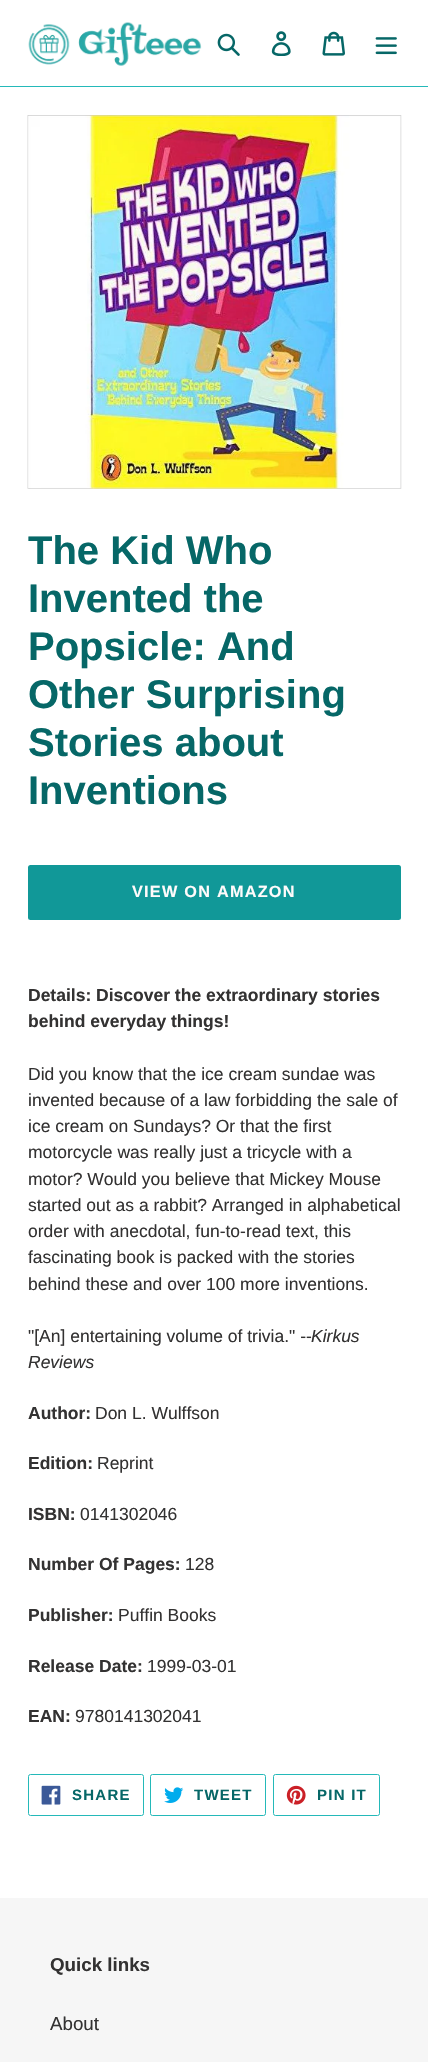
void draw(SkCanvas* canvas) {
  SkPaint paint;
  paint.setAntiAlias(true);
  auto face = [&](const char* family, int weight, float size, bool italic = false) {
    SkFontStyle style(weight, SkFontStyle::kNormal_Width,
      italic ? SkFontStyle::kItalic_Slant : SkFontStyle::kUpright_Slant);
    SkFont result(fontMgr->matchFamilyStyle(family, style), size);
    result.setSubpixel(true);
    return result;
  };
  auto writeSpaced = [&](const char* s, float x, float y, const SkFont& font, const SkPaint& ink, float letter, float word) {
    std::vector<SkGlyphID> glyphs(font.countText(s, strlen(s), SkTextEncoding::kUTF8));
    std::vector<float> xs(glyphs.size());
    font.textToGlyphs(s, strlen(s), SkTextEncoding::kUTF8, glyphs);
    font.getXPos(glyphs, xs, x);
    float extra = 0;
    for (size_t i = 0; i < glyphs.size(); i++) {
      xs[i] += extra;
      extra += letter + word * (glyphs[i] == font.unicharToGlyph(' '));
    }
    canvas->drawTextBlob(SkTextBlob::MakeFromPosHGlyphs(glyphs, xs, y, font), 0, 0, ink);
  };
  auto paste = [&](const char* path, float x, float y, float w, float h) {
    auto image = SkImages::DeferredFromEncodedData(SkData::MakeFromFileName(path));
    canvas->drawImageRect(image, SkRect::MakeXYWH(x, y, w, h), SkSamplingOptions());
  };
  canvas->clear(0xffffffff);
  paint.setColor(0xff24b9b9);
  canvas->drawRect(SkRect::MakeXYWH(0, 86, 428, 1), paint);
  paste("img/1.png", 28, 22, 174, 44);
  paste("img/2.png", 217, 33, 23, 23);
  paste("img/3.png", 271, 31, 20, 25);
  paste("img/4.png", 322, 31, 23, 25);
  paste("img/5.png", 375, 37, 22, 18);
  paste("img/6.png", 27, 115, 375, 374);
  paint.setColor(0xff119898);
  canvas->drawRoundRect(SkRect::MakeXYWH(28, 865, 373, 55), 2.5f, 2.5f, paint);
  paint.setStroke(true);
  paint.setStrokeWidth(1);
  paint.setColor(0xff24b9b9);
  canvas->drawRoundRect(SkRect::MakeXYWH(28.5f, 1774.5f, 115, 41), 2, 2, paint);
  paste("img/7.png", 41, 1785, 20, 20);
  canvas->drawRoundRect(SkRect::MakeXYWH(150.5f, 1774.5f, 115, 41), 2, 2, paint);
  paste("img/8.png", 164, 1787, 20, 16);
  canvas->drawRoundRect(SkRect::MakeXYWH(273.5f, 1774.5f, 106, 41), 2, 2, paint);
  paste("img/9.png", 286, 1785, 20, 20);
  paint.setStroke(false);
  paint.setColor(0xfff6f6f6);
  canvas->drawRect(SkRect::MakeXYWH(0, 1898, 428, 164), paint);
  auto f0 = face("Liberation Sans", 700, 40);
  paint.setColor(0xff066767);
  {
    const struct { const char* s; float x, y; } items[] = {
      {"The Kid Who", 28, 564},
      {"Invented the", 28, 612},
      {"Popsicle: And", 28, 660},
      {"Other Surprising", 28, 708},
      {"Stories about", 28, 756},
      {"Inventions", 28, 804},
    };
    for (auto [s, x, y] : items) {
      canvas->drawString(s, x, y, f0, paint);
    }
  }
  auto f1 = face("Liberation Sans", 700, 16.25f);
  paint.setColor(0xfffffbfb);
  writeSpaced("VIEW ON AMAZON", 132, 897, f1, paint, 1.25f, 0);
  auto f2 = face("Liberation Sans", 700, 17.5f);
  paint.setColor(0xff333232);
  canvas->drawString("Details: Discover the extraordinary stories", 28, 1001, f2, paint);
  canvas->drawString("behind everyday things!", 28, 1027, f2, paint);
  auto f3 = face("Liberation Sans", 400, 17.5f);
  {
    const struct { const char* s; float x, y; } items[] = {
      {"Did you know that the ice cream sundae was", 28, 1080},
      {"invented because of a law forbidding the sale of", 28, 1106},
      {"ice cream on Sundays? Or that the first", 28, 1132},
      {"motorcycle was really just a tricycle with a", 28, 1158},
      {"motor? Would you believe that Mickey Mouse", 28, 1185},
      {"started out as a rabbit? Arranged in alphabetical", 28, 1211},
      {"order with anecdotal, fun-to-read text, this", 28, 1237},
      {"fascinating book is packed with the stories", 28, 1263},
      {"behind these and over 100 more inventions.", 28, 1290},
      {"\"[An] entertaining volume of trivia.\" --", 28, 1342},
    };
    for (auto [s, x, y] : items) {
      canvas->drawString(s, x, y, f3, paint);
    }
  }
  auto f4 = face("Liberation Sans", 400, 17.5f, true);
  canvas->drawString("Kirkus", 311, 1342, f4, paint);
  canvas->drawString("Reviews", 28, 1368, f4, paint);
  canvas->drawString("Author:", 28, 1419, f2, paint);
  canvas->drawString("Don L. Wulffson", 95, 1419, f3, paint);
  canvas->drawString("Edition:", 28, 1469, f2, paint);
  canvas->drawString("Reprint", 97, 1469, f3, paint);
  canvas->drawString("ISBN:", 28, 1520, f2, paint);
  canvas->drawString("0141302046", 80, 1520, f3, paint);
  canvas->drawString("Number Of Pages:", 28, 1570, f2, paint);
  canvas->drawString("128", 185, 1570, f3, paint);
  canvas->drawString("Publisher:", 28, 1621, f2, paint);
  canvas->drawString("Puffin Books", 118, 1621, f3, paint);
  canvas->drawString("Release Date:", 28, 1672, f2, paint);
  canvas->drawString("1999-03-01", 147, 1672, f3, paint);
  canvas->drawString("EAN:", 28, 1722, f2, paint);
  canvas->drawString("9780141302041", 75, 1722, f3, paint);
  auto f5 = face("Liberation Sans", 700, 15);
  paint.setColor(0xff066767);
  {
    const struct { const char* s; float x, y; } items[] = {
      {"SHARE", 72, 1800},
      {"TWEET", 194, 1800},
      {"PIN IT", 317, 1800},
    };
    for (auto [s, x, y] : items) {
      writeSpaced(s, x, y, f5, paint, 1.25f, 0);
    }
  }
  auto f6 = face("Liberation Sans", 700, 18.75f);
  paint.setColor(0xff333232);
  canvas->drawString("Quick links", 50, 1971, f6, paint);
  auto f7 = face("Liberation Sans", 400, 18.75f);
  canvas->drawString("About", 50, 2030, f7, paint);
}
